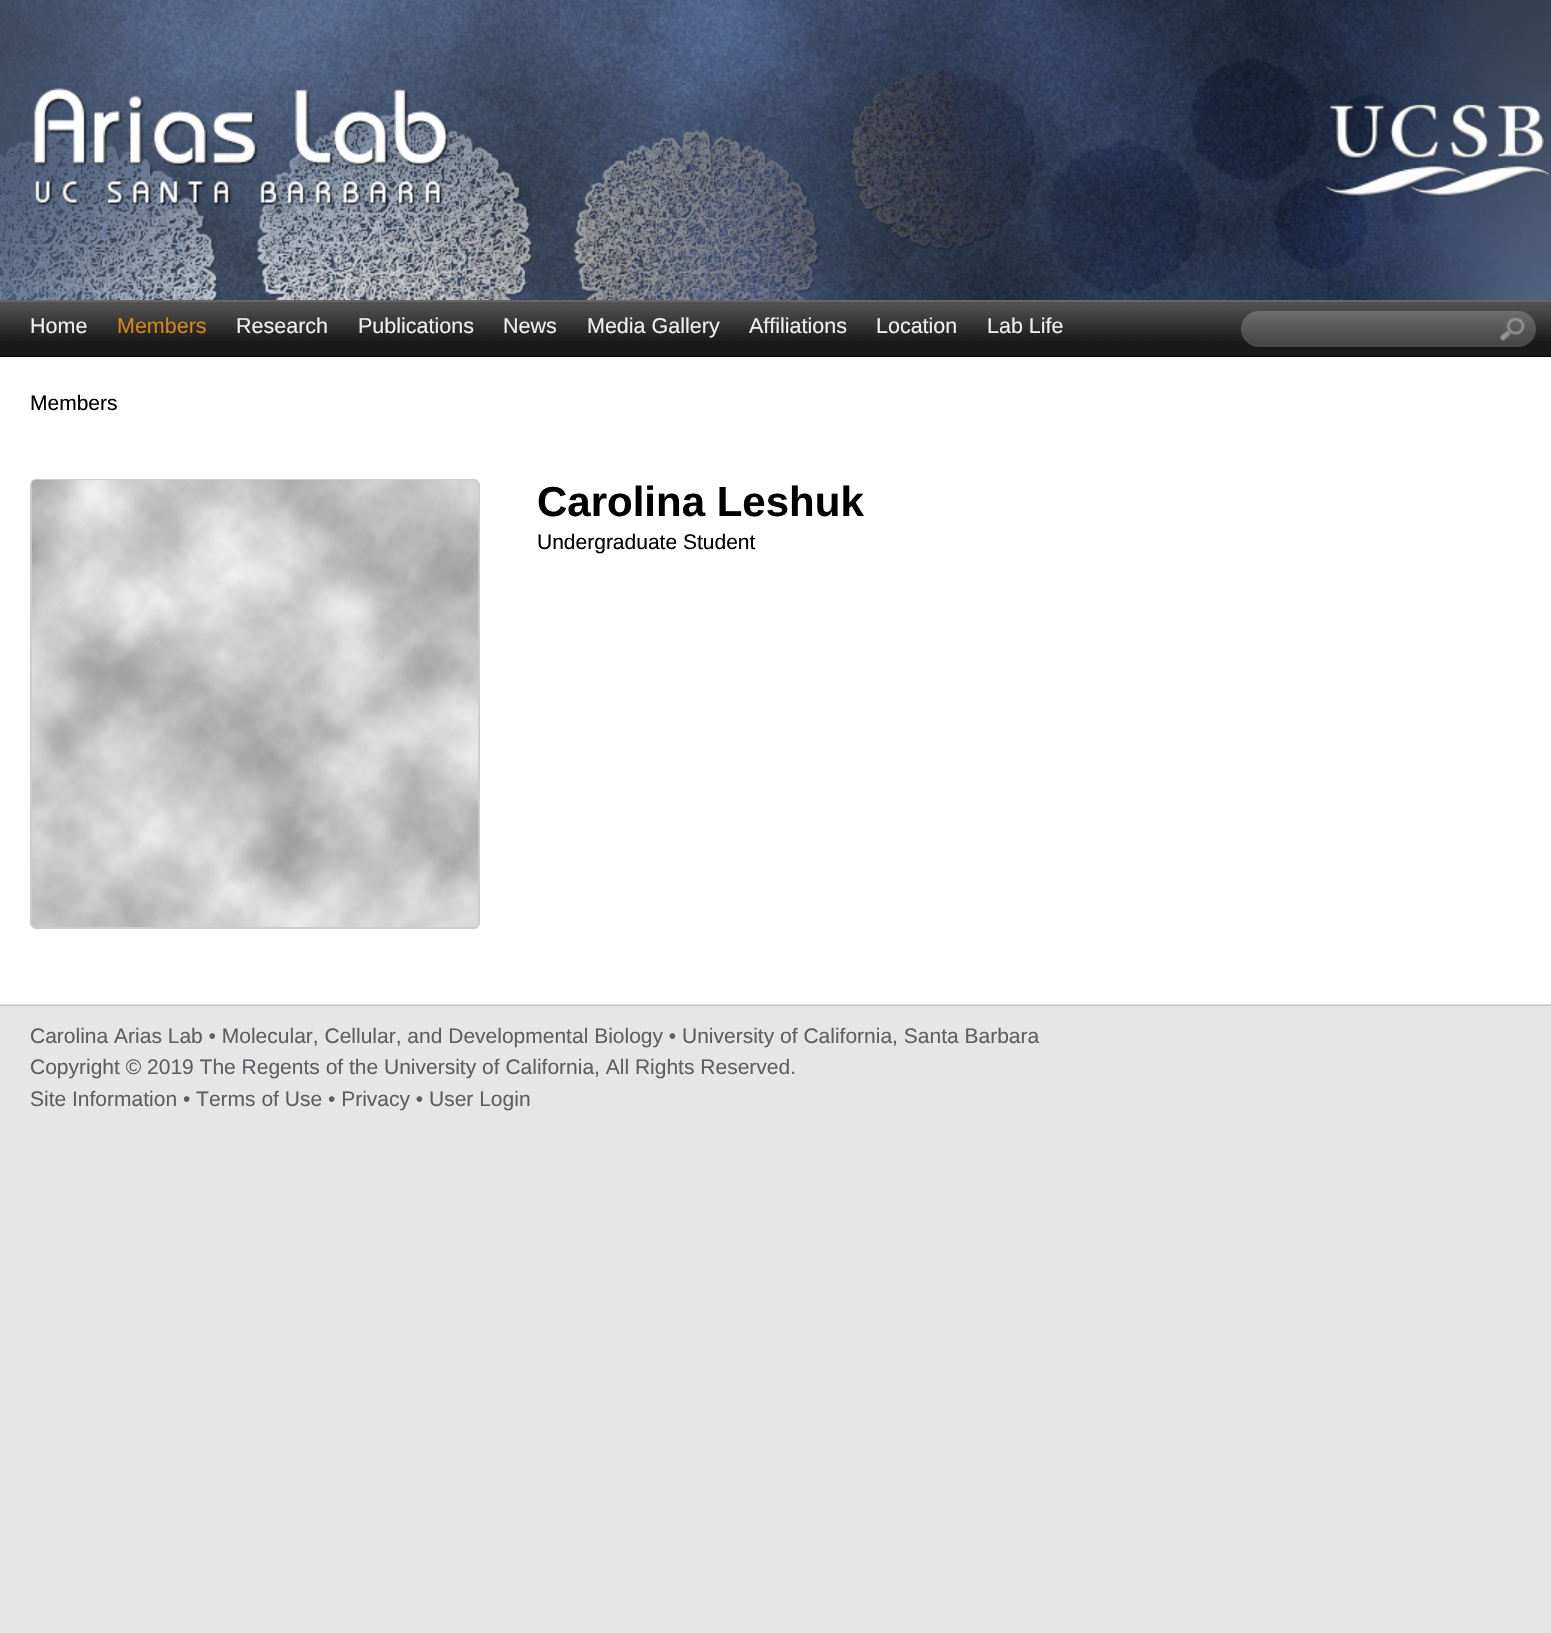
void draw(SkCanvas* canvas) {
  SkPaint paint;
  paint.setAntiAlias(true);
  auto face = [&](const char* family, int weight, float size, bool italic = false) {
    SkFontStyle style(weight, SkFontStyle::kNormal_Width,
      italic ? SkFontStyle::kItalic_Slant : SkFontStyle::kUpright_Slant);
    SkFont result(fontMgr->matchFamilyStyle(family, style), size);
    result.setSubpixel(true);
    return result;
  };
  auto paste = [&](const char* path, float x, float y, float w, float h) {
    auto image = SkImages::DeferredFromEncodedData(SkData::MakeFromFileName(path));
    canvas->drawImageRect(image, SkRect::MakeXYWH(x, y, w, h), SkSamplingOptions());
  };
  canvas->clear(0xffe6e6e6);
  paint.setColor(0xffc6c6c6);
  canvas->drawRect(SkRect::MakeXYWH(0, 1005, 1551, 1), paint);
  paste("img/1.png", 0, 0, 1551, 300);
  paste("img/2.png", 34, 88, 416, 118);
  paint.setColor(0xff191919);
  canvas->drawRect(SkRect::MakeXYWH(0, 341, 1551, 15), paint);
  paste("img/3.png", 0, 302, 1551, 39);
  paint.setColor(0xff666666);
  canvas->drawRect(SkRect::MakeXYWH(0, 300, 1551, 2), paint);
  paint.setColor(0xff000000);
  canvas->drawRect(SkRect::MakeXYWH(0, 356, 1551, 1), paint);
  paint.setColor(0x33ffffff);
  canvas->drawRoundRect(SkRect::MakeXYWH(1241, 311, 295, 36), 18, 18, paint);
  paste("img/4.png", 1499, 317, 26, 24);
  paint.setColor(0xffffffff);
  canvas->drawRect(SkRect::MakeXYWH(0, 357, 1551, 647), paint);
  paint.setColor(0xffdbdbdb);
  canvas->drawRect(SkRect::MakeXYWH(0, 1004, 1551, 1), paint);
  paint.setStroke(true);
  paint.setStrokeWidth(2);
  paint.setColor(0xffcccccc);
  canvas->drawRoundRect(SkRect::MakeXYWH(31, 480, 448, 448), 5, 5, paint);
  paste("img/5.png", 31, 480, 448, 447);
  auto f0 = face("Liberation Sans", 400, 21.5f);
  paint.setStroke(false);
  paint.setColor(0xffeeeeee);
  canvas->drawString("Home", 30, 333, f0, paint);
  paint.setColor(0xffd78518);
  canvas->drawString("Members", 117, 333, f0, paint);
  paint.setColor(0xffeeeeee);
  {
    const struct { const char* s; float x, y; } items[] = {
      {"Research", 236, 333},
      {"Publications", 358, 333},
      {"News", 503, 333},
      {"Media Gallery", 587, 333},
      {"Affiliations", 749, 333},
      {"Location", 876, 333},
      {"Lab Life", 987, 333},
    };
    for (auto [s, x, y] : items) {
      canvas->drawString(s, x, y, f0, paint);
    }
  }
  auto f1 = face("Liberation Sans", 400, 21);
  paint.setColor(0xff000000);
  canvas->drawString("Members", 30, 410, f1, paint);
  auto f2 = face("Liberation Sans", 700, 42);
  canvas->drawString("Carolina Leshuk", 537, 516, f2, paint);
  canvas->drawString("Undergraduate Student", 537, 549, f1, paint);
  paint.setColor(0xff5f5f63);
  {
    const struct { const char* s; float x, y; } items[] = {
      {"Carolina Arias Lab • Molecular, Cellular, and Developmental Biology • University of California, Santa Barbara", 30, 1043},
      {"Copyright © 2019 The Regents of the University of California, All Rights Reserved.", 30, 1074},
      {"Site Information • Terms of Use • Privacy • User Login", 30, 1106},
    };
    for (auto [s, x, y] : items) {
      canvas->drawString(s, x, y, f1, paint);
    }
  }
}
